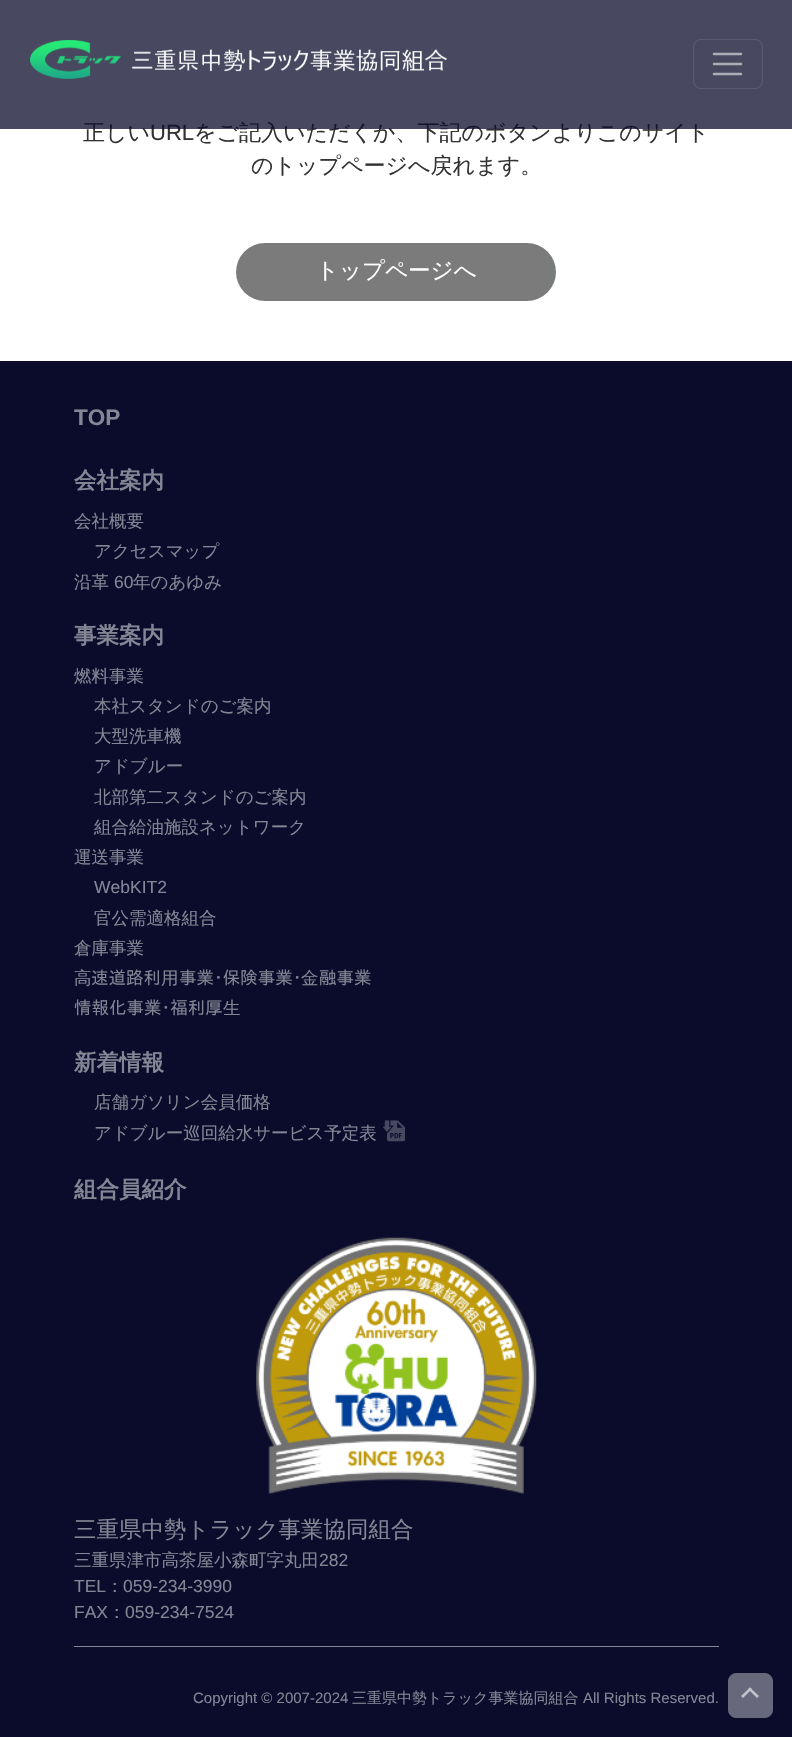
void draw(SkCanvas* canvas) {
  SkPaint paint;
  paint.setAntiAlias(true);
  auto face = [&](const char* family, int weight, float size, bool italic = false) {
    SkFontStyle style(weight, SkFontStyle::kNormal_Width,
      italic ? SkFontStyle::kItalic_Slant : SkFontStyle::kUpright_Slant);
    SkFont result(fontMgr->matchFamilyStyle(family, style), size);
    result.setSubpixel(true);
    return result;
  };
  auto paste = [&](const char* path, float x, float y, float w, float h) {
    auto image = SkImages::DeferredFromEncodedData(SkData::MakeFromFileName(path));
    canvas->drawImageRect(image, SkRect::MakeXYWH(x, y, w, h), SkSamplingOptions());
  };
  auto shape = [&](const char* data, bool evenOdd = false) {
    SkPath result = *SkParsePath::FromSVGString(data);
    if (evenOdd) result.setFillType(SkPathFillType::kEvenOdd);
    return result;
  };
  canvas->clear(0xffffffff);
  {
    const SkColor colors[] = {0xff25ea76, 0xff1e9b8d, 0xff7b7b7b, 0xff7b7b7b};
    const float stops[] = {0, 0.25f, 0.51f, 1};
    const SkPoint ends[] = {{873, 272}, {233, 272}};
    paint.setShader(SkGradientShader::MakeLinear(ends, colors, stops, 4, SkTileMode::kClamp));
    paint.setAlpha(255);
  }
  canvas->drawRoundRect(SkRect::MakeXYWH(236, 243, 320, 58), 29, 29, paint);
  paint.setShader(nullptr);
  paint.setColor(0xff0b0c2b);
  canvas->drawRect(SkRect::MakeXYWH(0, 361, 792, 1376), paint);
  paste("img/2.png", 383, 1120, 22, 22);
  paste("img/3.png", 256, 1237, 281, 257);
  paint.setColor(0xff858695);
  canvas->drawRect(SkRect::MakeXYWH(74, 1646, 645, 1), paint);
  paint.setColor(0xff67687b);
  canvas->drawRoundRect(SkRect::MakeXYWH(728.5f, 1673.5f, 44, 44), 7.5f, 7.5f, paint);
  paint.setStroke(true);
  paint.setStrokeWidth(1);
  canvas->drawRoundRect(SkRect::MakeXYWH(728.5f, 1673.5f, 44, 44), 7.5f, 7.5f, paint);
  paint.setStroke(false);
  paint.setColor(0xffc2c2ca);
  canvas->drawPath(shape("M741 1696L750 1687.5L752 1689L743 1698Z"), paint);
  canvas->drawPath(shape("M748 1689L750 1687.5L759 1696L757 1698Z"), paint);
  auto f0 = face("WenQuanYi Zen Hei", 500, 22);
  paint.setColor(0xff333333);
  canvas->drawString("正しい", 83, 140, f0, paint);
  auto f1 = face("Liberation Sans", 400, 22);
  canvas->drawString("URL", 150, 140, f1, paint);
  canvas->drawString("をご記入いただくか、下記のボタンよりこのサイト", 194, 140, f0, paint);
  paint.setColor(0xbf0b0c2b);
  canvas->drawRect(SkRect::MakeXYWH(0, 0, 792, 129), paint);
  paint.setStroke(true);
  paint.setColor(0xff5a5b70);
  canvas->drawRoundRect(SkRect::MakeXYWH(693.5f, 39.5f, 69, 49), 7.5f, 7.5f, paint);
  paint.setStrokeWidth(2.5f);
  paint.setStrokeCap(SkPaint::kRound_Cap);
  paint.setColor(0xffadadb7);
  canvas->drawPath(shape("M714 54H741M714 64H741M714 74H741"), paint);
  paste("img/1.png", 30, 40, 417, 39);
  paint.setStroke(false);
  paint.setColor(0xff333333);
  canvas->drawString("のトップページへ戻れます。", 251, 173, f0, paint);
  auto f2 = face("WenQuanYi Zen Hei", 500, 22.5f);
  paint.setColor(0xffffffff);
  canvas->drawString("トップページへ", 316, 278, f2, paint);
  auto f3 = face("Liberation Sans", 700, 22.5f);
  paint.setColor(0xff858695);
  canvas->drawString("TOP", 74, 425, f3, paint);
  auto f4 = face("WenQuanYi Zen Hei", 700, 22.5f);
  canvas->drawString("会社案内", 74, 488, f4, paint);
  auto f5 = face("WenQuanYi Zen Hei", 500, 17.5f);
  {
    const struct { const char* s; float x, y; } items[] = {
      {"会社概要", 74, 527},
      {"アクセスマップ", 94, 557},
      {"沿⾰", 74, 588},
    };
    for (auto [s, x, y] : items) {
      canvas->drawString(s, x, y, f5, paint);
    }
  }
  auto f6 = face("Liberation Sans", 400, 17.5f);
  canvas->drawString("60", 114, 588, f6, paint);
  canvas->drawString("年のあゆみ", 133, 588, f5, paint);
  canvas->drawString("事業案内", 74, 643, f4, paint);
  {
    const struct { const char* s; float x, y; } items[] = {
      {"燃料事業", 74, 682},
      {"本社スタンドのご案内", 94, 712},
      {"大型洗車機", 94, 742},
      {"アドブルー", 94, 772},
      {"北部第二スタンドのご案内", 94, 803},
      {"組合給油施設ネットワーク", 94, 833},
      {"運送事業", 74, 863},
    };
    for (auto [s, x, y] : items) {
      canvas->drawString(s, x, y, f5, paint);
    }
  }
  canvas->drawString("WebKIT2", 94, 893, f6, paint);
  {
    const struct { const char* s; float x, y; } items[] = {
      {"官公需適格組合", 94, 924},
      {"倉庫事業", 74, 954},
      {"⾼", 74, 984},
    };
    for (auto [s, x, y] : items) {
      canvas->drawString(s, x, y, f5, paint);
    }
  }
  auto f7 = face("IPAPGothic", 400, 17.5f);
  canvas->drawString("速道路利", 91, 984, f7, paint);
  canvas->drawString("⽤", 161, 984, f5, paint);
  canvas->drawString("事業･保険事業･", 179, 984, f7, paint);
  canvas->drawString("⾦", 301, 984, f5, paint);
  canvas->drawString("融事業", 319, 984, f7, paint);
  canvas->drawString("情報化事業･福利厚", 74, 1014, f7, paint);
  canvas->drawString("⽣", 223, 1014, f5, paint);
  canvas->drawString("新着情報", 74, 1070, f4, paint);
  canvas->drawString("店舗ガソリン会員価格", 94, 1108, f5, paint);
  canvas->drawString("アドブルー巡回給水サービス予定表", 94, 1139, f5, paint);
  canvas->drawString("組合員紹介", 74, 1197, f4, paint);
  canvas->drawString("三重県中勢トラック事業協同組合", 74, 1537, f2, paint);
  canvas->drawString("三重県津市高茶屋小森町字丸田", 74, 1566, f5, paint);
  canvas->drawString("282", 319, 1566, f6, paint);
  canvas->drawString("TEL", 74, 1592, f6, paint);
  canvas->drawString("：", 106, 1592, f5, paint);
  canvas->drawString("059-234-3990", 123, 1592, f6, paint);
  canvas->drawString("FAX", 74, 1618, f6, paint);
  canvas->drawString("：", 108, 1618, f5, paint);
  canvas->drawString("059-234-7524", 125, 1618, f6, paint);
  auto f8 = face("Liberation Sans", 400, 15);
  canvas->drawString("Copyright © 2007-2024", 193, 1703, f8, paint);
  auto f9 = face("WenQuanYi Zen Hei", 500, 15);
  canvas->drawString("三重県中勢トラック事業協同組合", 352, 1703, f9, paint);
  canvas->drawString("All Rights Reserved.", 583, 1703, f8, paint);
}
